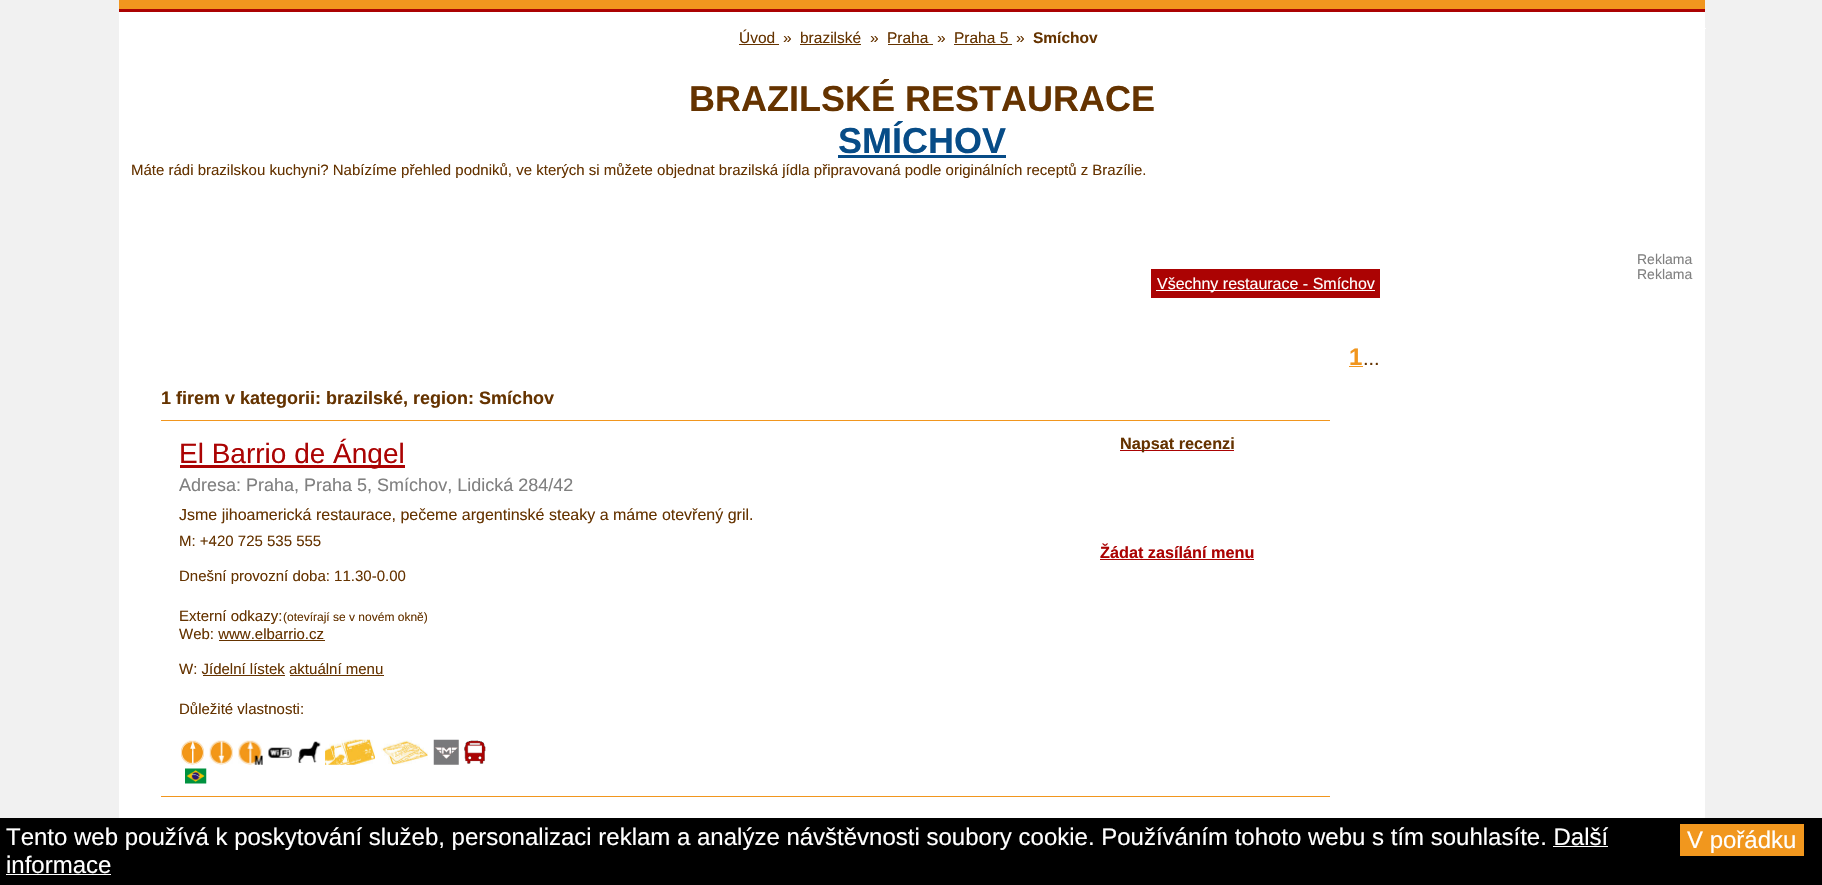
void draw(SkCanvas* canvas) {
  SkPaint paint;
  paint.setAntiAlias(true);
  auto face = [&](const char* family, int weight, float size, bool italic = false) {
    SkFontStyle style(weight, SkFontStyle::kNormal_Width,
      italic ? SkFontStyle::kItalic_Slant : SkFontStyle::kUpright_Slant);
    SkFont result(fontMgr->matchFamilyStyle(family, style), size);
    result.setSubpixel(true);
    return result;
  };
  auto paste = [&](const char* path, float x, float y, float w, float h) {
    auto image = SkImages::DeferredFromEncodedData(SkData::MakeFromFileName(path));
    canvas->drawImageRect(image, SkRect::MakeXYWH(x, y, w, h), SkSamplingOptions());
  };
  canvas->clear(0xfff1f1f1);
  {
    const struct { float x, y, w, h; SkColor color; } items[] = {
      {119, 12, 1586, 806, 0xffffffff},
      {119, 0, 1586, 9, 0xfff1961e},
      {119, 9, 1586, 3, 0xffab0303},
      {1705, 28, 1, 1, 0xffffffff},
      {739, 44, 40, 1, 0xff653300},
      {800, 44, 61, 1, 0xff653300},
      {888, 44, 45, 1, 0xff653300},
      {954, 44, 58, 1, 0xff653300},
      {838, 155, 168, 3, 0xff074c87},
      {1151, 269, 229, 29, 0xffab0303},
      {1156, 290, 219, 1, 0xffffffff},
      {1349, 366, 14, 1, 0xfff1961e},
      {161, 420, 1169, 1, 0xfff1961e},
      {180, 465, 225, 3, 0xffab0303},
      {219, 640, 106, 1, 0xff653300},
      {203, 675, 82, 1, 0xff653300},
      {290, 675, 94, 1, 0xff653300},
    };
    for (auto [x, y, w, h, color] : items) {
      paint.setColor(color);
      canvas->drawRect(SkRect::MakeXYWH(x, y, w, h), paint);
    }
  }
  paste("img/1.png", 181, 740, 23, 25);
  paste("img/2.png", 209, 740, 24, 25);
  paste("img/3.png", 238, 740, 25, 25);
  paste("img/4.png", 268, 747, 24, 12);
  paste("img/5.png", 298, 741, 23, 22);
  paste("img/6.png", 325, 739, 50, 26);
  paste("img/7.png", 381, 740, 47, 25);
  paste("img/8.png", 433, 739, 26, 26);
  paste("img/9.png", 464, 740, 22, 24);
  paste("img/10.png", 185, 768, 22, 16);
  {
    const struct { float x, y, w, h; SkColor color; } items[] = {
      {1120, 450, 114, 1, 0xffab0303},
      {1100, 559, 154, 1, 0xffab0303},
      {161, 796, 1169, 1, 0xfff1961e},
      {0, 818, 1822, 67, 0xff000000},
      {1680, 824, 124, 32, 0xfff1971e},
      {1553, 846, 55, 1, 0xffffffff},
      {6, 874, 105, 1, 0xffffffff},
    };
    for (auto [x, y, w, h, color] : items) {
      paint.setColor(color);
      canvas->drawRect(SkRect::MakeXYWH(x, y, w, h), paint);
    }
  }
  auto f0 = face("Liberation Sans", 400, 15.5f);
  paint.setColor(0xff653300);
  {
    const struct { const char* s; float x, y; } items[] = {
      {"Úvod", 739, 43},
      {"»", 783, 43},
      {"brazilské", 800, 43},
      {"»", 870, 43},
      {"Praha", 887, 43},
      {"»", 937, 43},
      {"Praha 5", 954, 43},
      {"»", 1016, 43},
    };
    for (auto [s, x, y] : items) {
      canvas->drawString(s, x, y, f0, paint);
    }
  }
  auto f1 = face("Liberation Sans", 700, 15.5f);
  canvas->drawString("Smíchov", 1033, 43, f1, paint);
  auto f2 = face("Liberation Sans", 700, 36);
  canvas->drawString("BRAZILSKÉ RESTAURACE", 689, 111, f2, paint);
  paint.setColor(0xff074c87);
  canvas->drawString("SMÍCHOV", 838, 153, f2, paint);
  auto f3 = face("Liberation Sans", 400, 15);
  paint.setColor(0xff653300);
  canvas->drawString("Máte rádi brazilskou kuchyni? Nabízíme přehled podniků, ve kterých si můžete objednat brazilská jídla připravovaná podle originálních receptů z Brazílie.", 131, 175, f3, paint);
  auto f4 = face("Liberation Sans", 400, 14);
  paint.setColor(0xff808080);
  canvas->drawString("Reklama", 1637, 264, f4, paint);
  canvas->drawString("Reklama", 1637, 279, f4, paint);
  auto f5 = face("Liberation Sans", 400, 16);
  paint.setColor(0xffffffff);
  canvas->drawString("Všechny restaurace - Smíchov", 1157, 289, f5, paint);
  auto f6 = face("Liberation Sans", 700, 24);
  paint.setColor(0xfff1961e);
  canvas->drawString("1", 1349, 365, f6, paint);
  auto f7 = face("Liberation Sans", 400, 20);
  paint.setColor(0xff653300);
  canvas->drawString("...", 1363, 365, f7, paint);
  auto f8 = face("Liberation Sans", 700, 18);
  canvas->drawString("1 firem v kategorii: brazilské, region: Smíchov", 161, 404, f8, paint);
  auto f9 = face("Liberation Sans", 400, 28);
  paint.setColor(0xffab0303);
  canvas->drawString("El Barrio de Ángel", 179, 463, f9, paint);
  auto f10 = face("Liberation Sans", 400, 18);
  paint.setColor(0xff808080);
  canvas->drawString("Adresa: Praha, Praha 5, Smíchov, Lidická 284/42", 179, 491, f10, paint);
  paint.setColor(0xff653300);
  canvas->drawString("Jsme jihoamerická restaurace, pečeme argentinské steaky a máme otevřený gril.", 179, 520, f5, paint);
  {
    const struct { const char* s; float x, y; } items[] = {
      {"M: +420 725 535 555", 179, 546},
      {"Dnešní provozní doba: 11.30-0.00", 179, 581},
      {"Externí odkazy:", 179, 621},
    };
    for (auto [s, x, y] : items) {
      canvas->drawString(s, x, y, f3, paint);
    }
  }
  auto f11 = face("Liberation Sans", 400, 12);
  canvas->drawString("(otevírají se v novém okně)", 283, 621, f11, paint);
  {
    const struct { const char* s; float x, y; } items[] = {
      {"Web: www.elbarrio.cz", 179, 639},
      {"W: Jídelní lístek aktuální menu", 179, 674},
      {"Důležité vlastnosti:", 179, 714},
    };
    for (auto [s, x, y] : items) {
      canvas->drawString(s, x, y, f3, paint);
    }
  }
  auto f12 = face("Liberation Sans", 700, 16.25f);
  canvas->drawString("Napsat recenzi", 1120, 449, f12, paint);
  paint.setColor(0xffab0303);
  canvas->drawString("Žádat zasílání menu", 1100, 558, f12, paint);
  auto f13 = face("Liberation Sans", 400, 24);
  paint.setColor(0xffffffff);
  {
    const struct { const char* s; float x, y; } items[] = {
      {"Tento web používá k poskytování služeb, personalizaci reklam a analýze návštěvnosti soubory cookie. Používáním tohoto webu s tím souhlasíte. Další", 6, 845},
      {"V pořádku", 1687, 848},
      {"informace", 6, 873},
    };
    for (auto [s, x, y] : items) {
      canvas->drawString(s, x, y, f13, paint);
    }
  }
}
